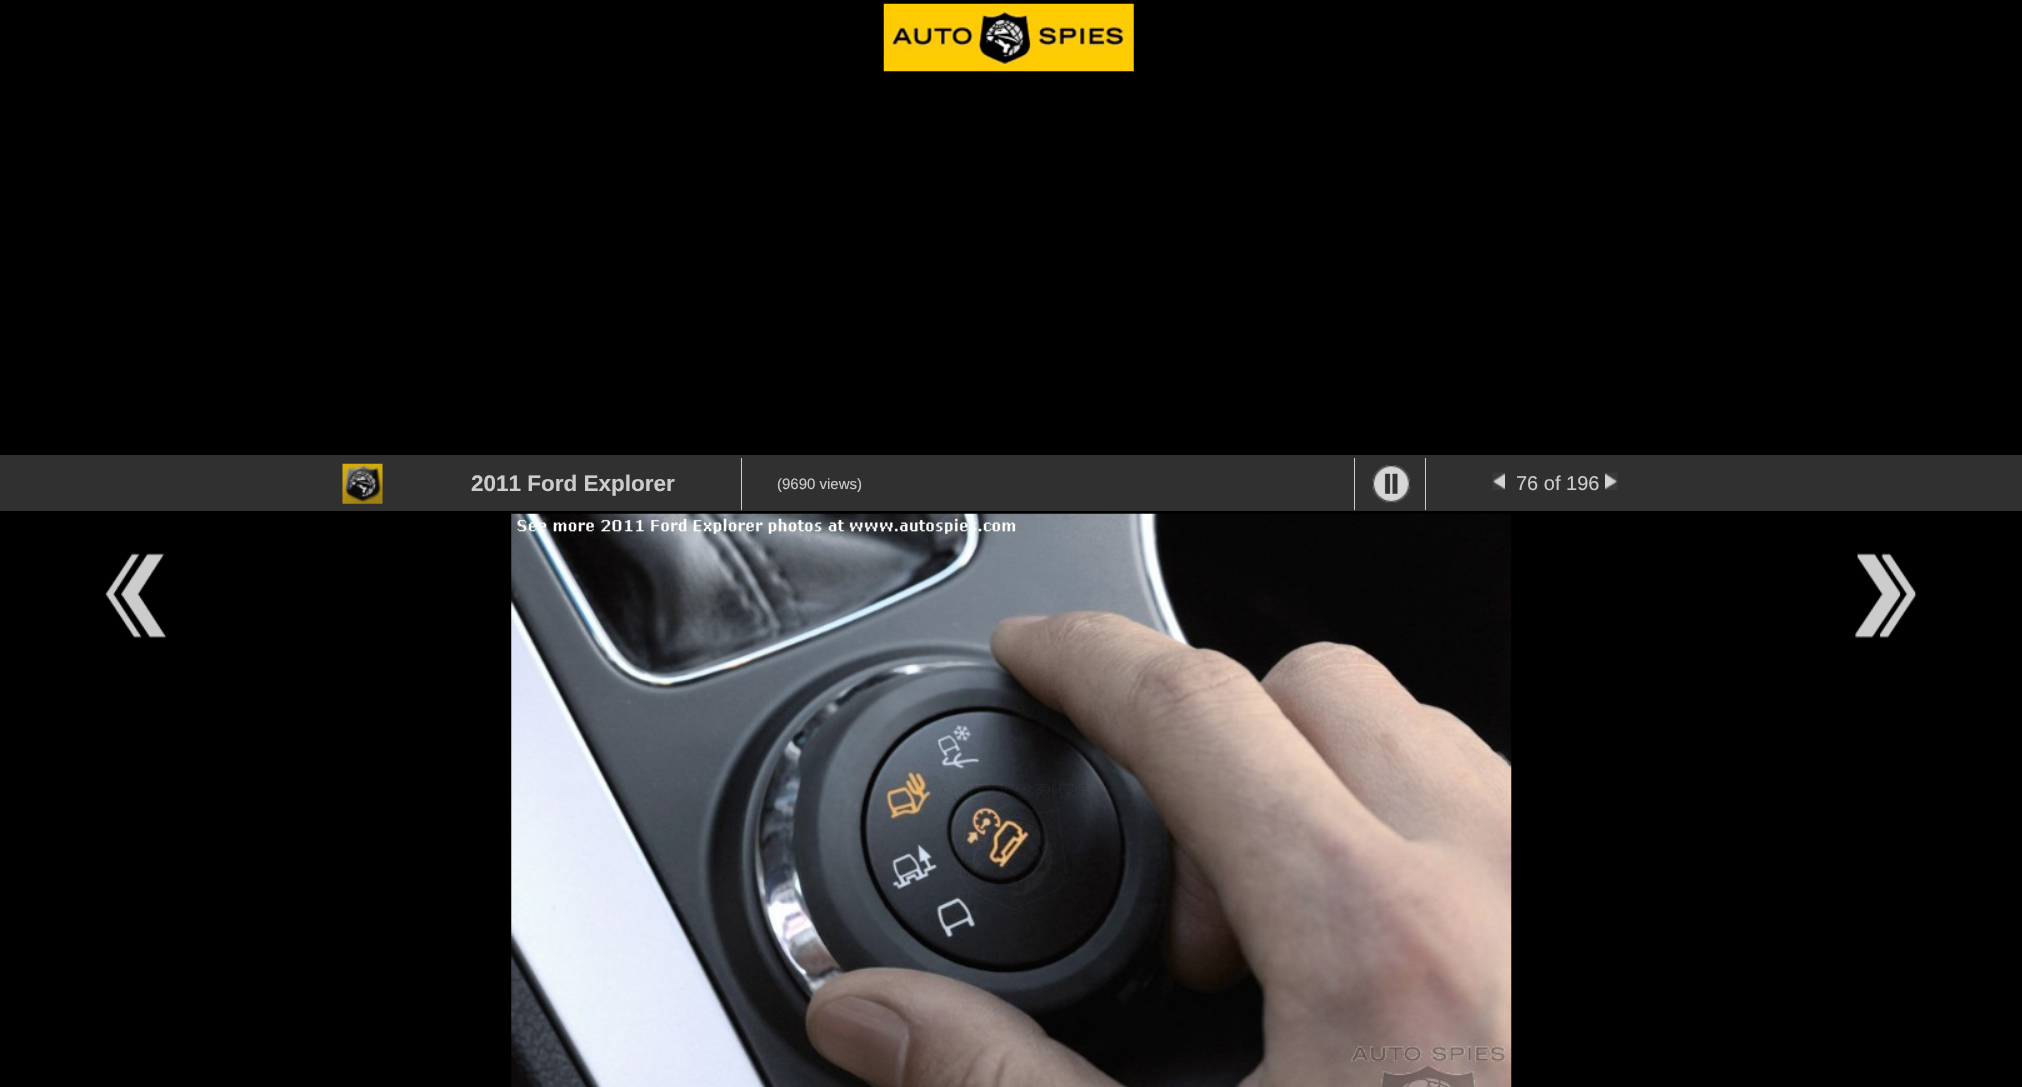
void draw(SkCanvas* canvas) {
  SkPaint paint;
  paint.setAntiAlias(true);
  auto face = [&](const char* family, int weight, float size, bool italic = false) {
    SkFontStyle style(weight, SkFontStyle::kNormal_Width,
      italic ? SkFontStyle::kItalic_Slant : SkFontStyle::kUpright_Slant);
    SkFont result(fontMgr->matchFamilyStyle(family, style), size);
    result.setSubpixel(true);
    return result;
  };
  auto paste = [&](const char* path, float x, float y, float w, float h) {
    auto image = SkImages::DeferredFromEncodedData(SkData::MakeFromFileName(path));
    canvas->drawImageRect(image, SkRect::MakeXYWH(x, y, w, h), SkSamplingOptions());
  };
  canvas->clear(0xff000000);
  paste("img/1.png", 883, 3, 251, 69);
  paint.setColor(0xff303030);
  canvas->drawRect(SkRect::MakeXYWH(0, 455, 2022, 56), paint);
  paste("img/2.png", 342, 463, 41, 41);
  {
    const struct { float x, y, w, h; SkColor color; } items[] = {
      {741, 458, 1, 52, 0xffcccccc},
      {1354, 458, 1, 52, 0xffcccccc},
      {1425, 458, 1, 52, 0xffcccccc},
    };
    for (auto [x, y, w, h, color] : items) {
      paint.setColor(color);
      canvas->drawRect(SkRect::MakeXYWH(x, y, w, h), paint);
    }
  }
  paste("img/3.png", 1372, 465, 39, 38);
  paste("img/4.png", 1492, 472, 13, 18);
  paste("img/5.png", 1605, 472, 13, 18);
  paste("img/6.png", 511, 513, 1001, 574);
  paste("img/7.png", 105, 553, 62, 85);
  paste("img/8.png", 1855, 553, 62, 85);
  auto f0 = face("Liberation Sans", 700, 22.5f);
  canvas->drawString("2011 Ford Explorer", 471, 491, f0, paint);
  auto f1 = face("Liberation Sans", 400, 15);
  canvas->drawString("(9690 views)", 777, 489, f1, paint);
  auto f2 = face("Liberation Sans", 400, 20);
  canvas->drawString("76 of 196", 1516, 490, f2, paint);
}
